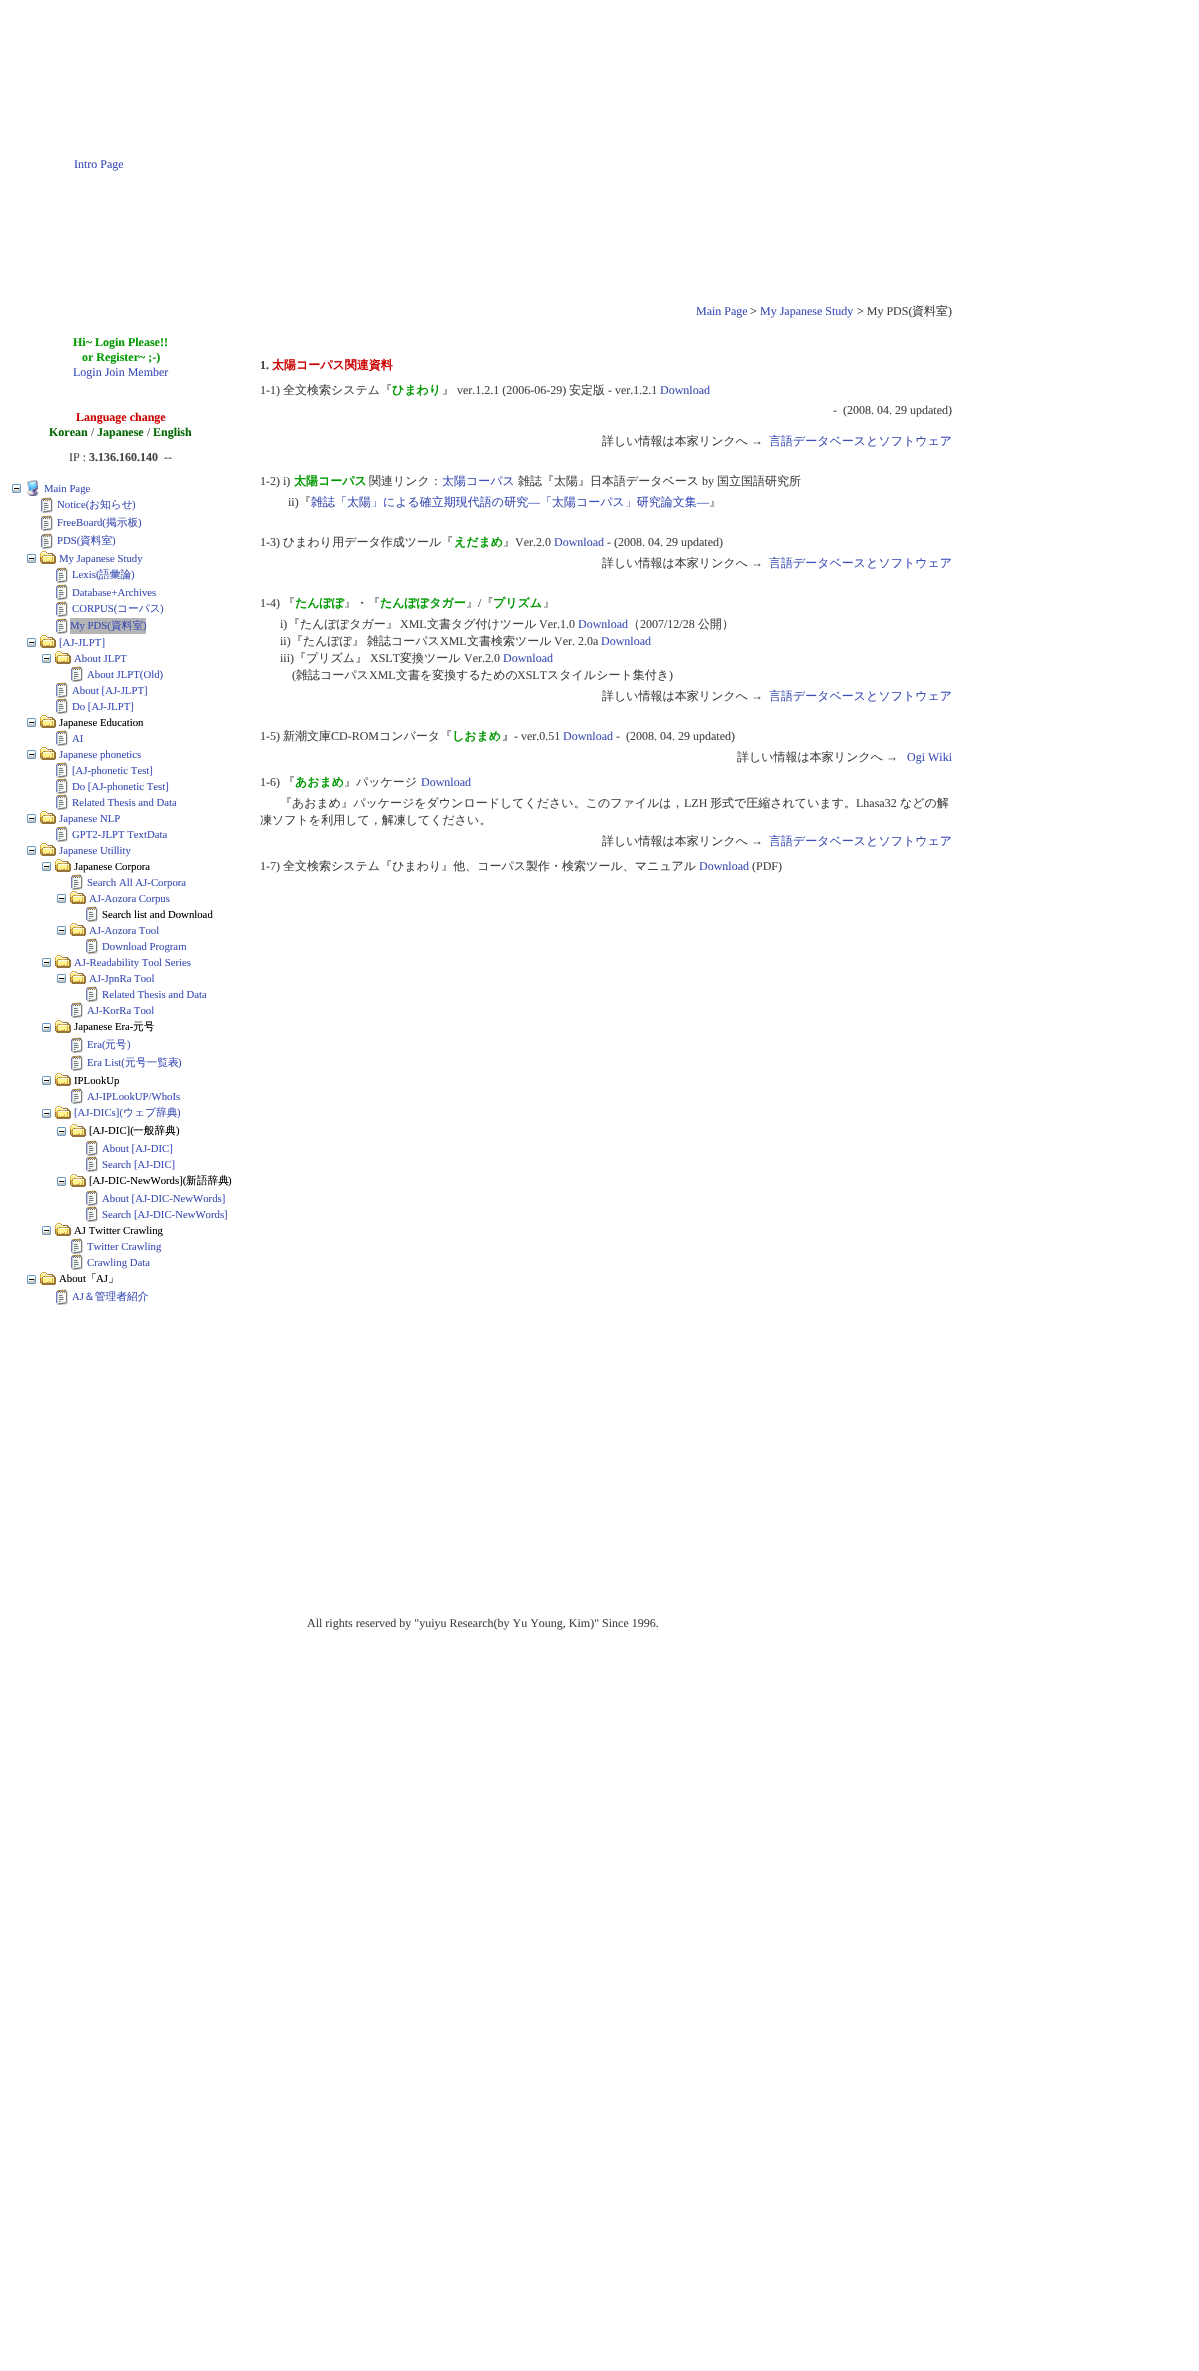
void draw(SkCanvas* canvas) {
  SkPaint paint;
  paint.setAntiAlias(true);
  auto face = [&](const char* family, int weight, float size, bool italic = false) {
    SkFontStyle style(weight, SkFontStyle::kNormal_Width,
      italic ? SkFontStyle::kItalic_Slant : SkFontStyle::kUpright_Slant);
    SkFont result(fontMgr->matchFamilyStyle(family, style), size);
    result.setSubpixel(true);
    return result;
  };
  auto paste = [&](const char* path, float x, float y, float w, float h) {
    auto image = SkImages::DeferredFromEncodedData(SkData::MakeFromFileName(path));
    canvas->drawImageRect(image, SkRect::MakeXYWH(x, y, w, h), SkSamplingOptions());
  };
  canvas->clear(0xffffffff);
  paste("img/1.png", 12, 484, 9, 9);
  paste("img/2.png", 27, 480, 12, 16);
  paste("img/3.png", 41, 497, 12, 16);
  paste("img/3.png", 41, 515, 12, 16);
  paste("img/3.png", 41, 533, 12, 16);
  paste("img/1.png", 27, 554, 9, 9);
  paste("img/4.png", 40, 551, 16, 13);
  paste("img/3.png", 56, 567, 12, 16);
  paste("img/3.png", 56, 584, 12, 16);
  paste("img/3.png", 56, 601, 12, 16);
  paste("img/3.png", 56, 618, 12, 16);
  paint.setColor(0xffb5b5b5);
  canvas->drawRect(SkRect::MakeXYWH(70, 618, 76, 16), paint);
  paste("img/1.png", 27, 638, 9, 9);
  paste("img/4.png", 40, 635, 16, 13);
  paste("img/1.png", 42, 654, 9, 9);
  paste("img/4.png", 55, 651, 16, 13);
  paste("img/3.png", 71, 666, 12, 16);
  paste("img/3.png", 56, 682, 12, 16);
  paste("img/3.png", 56, 698, 12, 16);
  paste("img/1.png", 27, 718, 9, 9);
  paste("img/4.png", 40, 715, 16, 13);
  paste("img/3.png", 56, 730, 12, 16);
  paste("img/1.png", 27, 750, 9, 9);
  paste("img/4.png", 40, 747, 16, 13);
  paste("img/3.png", 56, 762, 12, 16);
  paste("img/3.png", 56, 778, 12, 16);
  paste("img/3.png", 56, 794, 12, 16);
  paste("img/1.png", 27, 814, 9, 9);
  paste("img/4.png", 40, 811, 16, 13);
  paste("img/3.png", 56, 826, 12, 16);
  paste("img/1.png", 27, 846, 9, 9);
  paste("img/4.png", 40, 843, 16, 13);
  paste("img/1.png", 42, 862, 9, 9);
  paste("img/4.png", 55, 859, 16, 13);
  paste("img/3.png", 71, 874, 12, 16);
  paste("img/1.png", 57, 894, 9, 9);
  paste("img/4.png", 70, 891, 16, 13);
  paste("img/3.png", 86, 906, 12, 16);
  paste("img/1.png", 57, 926, 9, 9);
  paste("img/4.png", 70, 923, 16, 13);
  paste("img/3.png", 86, 938, 12, 16);
  paste("img/1.png", 42, 958, 9, 9);
  paste("img/4.png", 55, 955, 16, 13);
  paste("img/1.png", 57, 974, 9, 9);
  paste("img/4.png", 70, 971, 16, 13);
  paste("img/3.png", 86, 986, 12, 16);
  paste("img/3.png", 71, 1002, 12, 16);
  paste("img/1.png", 42, 1023, 9, 9);
  paste("img/4.png", 55, 1020, 16, 13);
  paste("img/3.png", 71, 1037, 12, 16);
  paste("img/3.png", 71, 1055, 12, 16);
  paste("img/1.png", 42, 1076, 9, 9);
  paste("img/4.png", 55, 1073, 16, 13);
  paste("img/3.png", 71, 1088, 12, 16);
  paste("img/1.png", 42, 1109, 9, 9);
  paste("img/4.png", 55, 1106, 16, 13);
  paste("img/1.png", 57, 1127, 9, 9);
  paste("img/4.png", 70, 1124, 16, 13);
  paste("img/3.png", 86, 1140, 12, 16);
  paste("img/3.png", 86, 1156, 12, 16);
  paste("img/1.png", 57, 1177, 9, 9);
  paste("img/4.png", 70, 1174, 16, 13);
  paste("img/3.png", 86, 1190, 12, 16);
  paste("img/3.png", 86, 1206, 12, 16);
  paste("img/1.png", 42, 1226, 9, 9);
  paste("img/4.png", 55, 1223, 16, 13);
  paste("img/3.png", 71, 1238, 12, 16);
  paste("img/3.png", 71, 1254, 12, 16);
  paste("img/1.png", 27, 1275, 9, 9);
  paste("img/4.png", 40, 1272, 16, 13);
  paste("img/3.png", 56, 1289, 12, 16);
  auto f0 = face("Liberation Serif", 400, 12);
  paint.setColor(0xff3c4eb5);
  canvas->drawString("Intro Page", 74, 168, f0, paint);
  canvas->drawString("Main Page", 696, 315, f0, paint);
  paint.setColor(0xff444444);
  canvas->drawString(">", 750, 315, f0, paint);
  paint.setColor(0xff3c4eb5);
  canvas->drawString("My Japanese Study", 760, 315, f0, paint);
  paint.setColor(0xff444444);
  canvas->drawString("> My PDS(", 857, 315, f0, paint);
  auto f1 = face("WenQuanYi Zen Hei", 500, 12);
  canvas->drawString("資料室", 912, 315, f1, paint);
  canvas->drawString(")", 948, 315, f0, paint);
  auto f2 = face("Liberation Serif", 700, 12);
  paint.setColor(0xff009900);
  canvas->drawString("Hi~ Login Please!!", 73, 346, f2, paint);
  canvas->drawString("or Register~ ;-)", 82, 361, f2, paint);
  paint.setColor(0xff3c4eb5);
  canvas->drawString("Login Join Member", 73, 376, f0, paint);
  paint.setColor(0xffcc0000);
  canvas->drawString("Language change", 76, 421, f2, paint);
  paint.setColor(0xff006600);
  canvas->drawString("Korean", 49, 436, f2, paint);
  paint.setColor(0xff444444);
  canvas->drawString("/", 91, 436, f0, paint);
  paint.setColor(0xff006600);
  canvas->drawString("Japanese", 97, 436, f2, paint);
  paint.setColor(0xff444444);
  canvas->drawString("/", 147, 436, f0, paint);
  paint.setColor(0xff006600);
  canvas->drawString("English", 153, 436, f2, paint);
  paint.setColor(0xff444444);
  canvas->drawString("IP :", 69, 461, f0, paint);
  canvas->drawString("3.136.160.140", 89, 461, f2, paint);
  canvas->drawString("--", 164, 461, f0, paint);
  auto f3 = face("Liberation Serif", 400, 10.75f);
  paint.setColor(0xff3c4eb5);
  canvas->drawString("Main Page", 44, 492, f3, paint);
  canvas->drawString("Notice(", 57, 508, f3, paint);
  auto f4 = face("WenQuanYi Zen Hei", 500, 10.75f);
  canvas->drawString("お知らせ", 89, 508, f4, paint);
  canvas->drawString(")", 132, 508, f3, paint);
  canvas->drawString("FreeBoard(", 57, 526, f3, paint);
  canvas->drawString("掲示板", 106, 526, f4, paint);
  canvas->drawString(")", 138, 526, f3, paint);
  canvas->drawString("PDS(", 57, 544, f3, paint);
  canvas->drawString("資料室", 80, 544, f4, paint);
  {
    const struct { const char* s; float x, y; } items[] = {
      {")", 112, 544},
      {"My Japanese Study", 59, 562},
      {"Lexis(", 72, 578},
    };
    for (auto [s, x, y] : items) {
      canvas->drawString(s, x, y, f3, paint);
    }
  }
  canvas->drawString("語彙論", 99, 578, f4, paint);
  {
    const struct { const char* s; float x, y; } items[] = {
      {")", 131, 578},
      {"Database+Archives", 72, 596},
      {"CORPUS(", 72, 612},
    };
    for (auto [s, x, y] : items) {
      canvas->drawString(s, x, y, f3, paint);
    }
  }
  canvas->drawString("コーパス", 117, 612, f4, paint);
  canvas->drawString(")", 160, 612, f3, paint);
  canvas->drawString("My PDS(", 70, 629, f3, paint);
  canvas->drawString("資料室", 111, 629, f4, paint);
  {
    const struct { const char* s; float x, y; } items[] = {
      {")", 143, 629},
      {"[AJ-JLPT]", 59, 646},
      {"About JLPT", 74, 662},
      {"About JLPT(Old)", 87, 678},
      {"About [AJ-JLPT]", 72, 694},
      {"Do [AJ-JLPT]", 72, 710},
    };
    for (auto [s, x, y] : items) {
      canvas->drawString(s, x, y, f3, paint);
    }
  }
  paint.setColor(0xff000000);
  canvas->drawString("Japanese Education", 59, 726, f3, paint);
  paint.setColor(0xff3c4eb5);
  {
    const struct { const char* s; float x, y; } items[] = {
      {"AI", 72, 742},
      {"Japanese phonetics", 59, 758},
      {"[AJ-phonetic Test]", 72, 774},
      {"Do [AJ-phonetic Test]", 72, 790},
      {"Related Thesis and Data", 72, 806},
      {"Japanese NLP", 59, 822},
      {"GPT2-JLPT TextData", 72, 838},
      {"Japanese Utillity", 59, 854},
    };
    for (auto [s, x, y] : items) {
      canvas->drawString(s, x, y, f3, paint);
    }
  }
  paint.setColor(0xff000000);
  canvas->drawString("Japanese Corpora", 74, 870, f3, paint);
  paint.setColor(0xff3c4eb5);
  canvas->drawString("Search All AJ-Corpora", 87, 886, f3, paint);
  canvas->drawString("AJ-Aozora Corpus", 89, 902, f3, paint);
  paint.setColor(0xff000000);
  canvas->drawString("Search list and Download", 102, 918, f3, paint);
  paint.setColor(0xff3c4eb5);
  {
    const struct { const char* s; float x, y; } items[] = {
      {"AJ-Aozora Tool", 89, 934},
      {"Download Program", 102, 950},
      {"AJ-Readability Tool Series", 74, 966},
      {"AJ-JpnRa Tool", 89, 982},
      {"Related Thesis and Data", 102, 998},
      {"AJ-KorRa Tool", 87, 1014},
    };
    for (auto [s, x, y] : items) {
      canvas->drawString(s, x, y, f3, paint);
    }
  }
  paint.setColor(0xff000000);
  canvas->drawString("Japanese Era-", 74, 1030, f3, paint);
  canvas->drawString("元号", 133, 1030, f4, paint);
  paint.setColor(0xff3c4eb5);
  canvas->drawString("Era(", 87, 1048, f3, paint);
  canvas->drawString("元号", 105, 1048, f4, paint);
  canvas->drawString(")", 127, 1048, f3, paint);
  canvas->drawString("Era List(", 87, 1066, f3, paint);
  canvas->drawString("元号一覧表", 125, 1066, f4, paint);
  canvas->drawString(")", 178, 1066, f3, paint);
  paint.setColor(0xff000000);
  canvas->drawString("IPLookUp", 74, 1084, f3, paint);
  paint.setColor(0xff3c4eb5);
  canvas->drawString("AJ-IPLookUP/WhoIs", 87, 1100, f3, paint);
  canvas->drawString("[AJ-DICs](", 74, 1116, f3, paint);
  canvas->drawString("ウェブ辞典", 123, 1116, f4, paint);
  canvas->drawString(")", 177, 1116, f3, paint);
  paint.setColor(0xff000000);
  canvas->drawString("[AJ-DIC](", 89, 1134, f3, paint);
  canvas->drawString("一般辞典", 133, 1134, f4, paint);
  canvas->drawString(")", 176, 1134, f3, paint);
  paint.setColor(0xff3c4eb5);
  canvas->drawString("About [AJ-DIC]", 102, 1152, f3, paint);
  canvas->drawString("Search [AJ-DIC]", 102, 1168, f3, paint);
  paint.setColor(0xff000000);
  canvas->drawString("[AJ-DIC-NewWords](", 89, 1184, f3, paint);
  canvas->drawString("新語辞典", 186, 1184, f4, paint);
  canvas->drawString(")", 228, 1184, f3, paint);
  paint.setColor(0xff3c4eb5);
  canvas->drawString("About [AJ-DIC-NewWords]", 102, 1202, f3, paint);
  canvas->drawString("Search [AJ-DIC-NewWords]", 102, 1218, f3, paint);
  paint.setColor(0xff000000);
  canvas->drawString("AJ Twitter Crawling", 74, 1234, f3, paint);
  paint.setColor(0xff3c4eb5);
  canvas->drawString("Twitter Crawling", 87, 1250, f3, paint);
  canvas->drawString("Crawling Data", 87, 1266, f3, paint);
  paint.setColor(0xff000000);
  canvas->drawString("About", 59, 1282, f3, paint);
  canvas->drawString("「", 86, 1282, f4, paint);
  canvas->drawString("AJ", 96, 1282, f3, paint);
  canvas->drawString("」", 108, 1282, f4, paint);
  paint.setColor(0xff3c4eb5);
  canvas->drawString("AJ", 72, 1300, f3, paint);
  canvas->drawString("＆管理者紹介", 84, 1300, f4, paint);
  paint.setColor(0xff444444);
  canvas->drawString("1.", 260, 369, f2, paint);
  auto f5 = face("WenQuanYi Zen Hei", 700, 12);
  paint.setColor(0xffcc0000);
  canvas->drawString("太陽コーパス関連資料", 272, 369, f5, paint);
  paint.setColor(0xff444444);
  canvas->drawString("1-1)", 260, 394, f0, paint);
  canvas->drawString("全文検索システム『", 283, 394, f1, paint);
  paint.setColor(0xff009900);
  canvas->drawString("ひまわり", 392, 394, f5, paint);
  paint.setColor(0xff444444);
  canvas->drawString("』", 442, 394, f1, paint);
  canvas->drawString("ver.1.2.1 (2006-06-29)", 457, 394, f0, paint);
  canvas->drawString("安定版", 569, 394, f1, paint);
  canvas->drawString("- ver.1.2.1", 608, 394, f0, paint);
  paint.setColor(0xff3c4eb5);
  canvas->drawString("Download", 660, 394, f0, paint);
  paint.setColor(0xff444444);
  canvas->drawString("-  (2008. 04. 29 updated)", 833, 414, f0, paint);
  canvas->drawString("詳しい情報は本家リンクへ", 602, 445, f1, paint);
  canvas->drawString("→", 751, 445, f0, paint);
  paint.setColor(0xff3c4eb5);
  canvas->drawString("言語データベースとソフトウェア", 769, 445, f1, paint);
  paint.setColor(0xff444444);
  canvas->drawString("1-2) i)", 260, 485, f0, paint);
  paint.setColor(0xff009900);
  canvas->drawString("太陽コーパス", 294, 485, f5, paint);
  paint.setColor(0xff444444);
  canvas->drawString("関連リンク：", 369, 485, f1, paint);
  paint.setColor(0xff3c4eb5);
  canvas->drawString("太陽コーパス", 442, 485, f1, paint);
  paint.setColor(0xff444444);
  canvas->drawString("雑誌『太陽』日本語データベース", 518, 485, f1, paint);
  canvas->drawString("by", 702, 485, f0, paint);
  canvas->drawString("国立国語研究所", 717, 485, f1, paint);
  canvas->drawString("ii)", 288, 506, f0, paint);
  canvas->drawString("『", 299, 506, f1, paint);
  paint.setColor(0xff3c4eb5);
  canvas->drawString("雑誌「太陽」による確立期現代語の研究", 311, 506, f1, paint);
  canvas->drawString("―", 528, 506, f0, paint);
  canvas->drawString("「太陽コーパス」研究論文集", 540, 506, f1, paint);
  canvas->drawString("―", 697, 506, f0, paint);
  paint.setColor(0xff444444);
  canvas->drawString("』", 709, 506, f1, paint);
  canvas->drawString("1-3)", 260, 546, f0, paint);
  canvas->drawString("ひまわり用データ作成ツール『", 283, 546, f1, paint);
  paint.setColor(0xff009900);
  canvas->drawString("えだまめ", 454, 546, f5, paint);
  paint.setColor(0xff444444);
  canvas->drawString("』", 503, 546, f1, paint);
  canvas->drawString("Ver.2.0", 515, 546, f0, paint);
  paint.setColor(0xff3c4eb5);
  canvas->drawString("Download", 554, 546, f0, paint);
  paint.setColor(0xff444444);
  canvas->drawString("- (2008. 04. 29 updated)", 607, 546, f0, paint);
  canvas->drawString("詳しい情報は本家リンクへ", 602, 567, f1, paint);
  canvas->drawString("→", 751, 567, f0, paint);
  paint.setColor(0xff3c4eb5);
  canvas->drawString("言語データベースとソフトウェア", 769, 567, f1, paint);
  paint.setColor(0xff444444);
  canvas->drawString("1-4)", 260, 607, f0, paint);
  canvas->drawString("『", 283, 607, f1, paint);
  paint.setColor(0xff009900);
  canvas->drawString("たんぽぽ", 295, 607, f5, paint);
  paint.setColor(0xff444444);
  canvas->drawString("』・『", 344, 607, f1, paint);
  paint.setColor(0xff009900);
  canvas->drawString("たんぽぽタガー", 380, 607, f5, paint);
  paint.setColor(0xff444444);
  canvas->drawString("』 『", 466, 607, f1, paint);
  paint.setColor(0xff009900);
  canvas->drawString("プリズム", 493, 607, f5, paint);
  paint.setColor(0xff444444);
  canvas->drawString("/", 478, 607, f0, paint);
  canvas->drawString("』", 543, 607, f1, paint);
  canvas->drawString("i)", 280, 628, f0, paint);
  canvas->drawString("『たんぽぽタガー』", 288, 628, f1, paint);
  canvas->drawString("XML", 400, 628, f0, paint);
  canvas->drawString("文書タグ付けツール", 427, 628, f1, paint);
  canvas->drawString("Ver.1.0", 539, 628, f0, paint);
  paint.setColor(0xff3c4eb5);
  canvas->drawString("Download", 578, 628, f0, paint);
  paint.setColor(0xff444444);
  canvas->drawString("（", 628, 628, f1, paint);
  canvas->drawString("2007/12/28", 640, 628, f0, paint);
  canvas->drawString("公開）", 698, 628, f1, paint);
  canvas->drawString("ii)", 280, 645, f0, paint);
  canvas->drawString("『たんぽぽ』", 291, 645, f1, paint);
  canvas->drawString("雑誌コーパス", 367, 645, f1, paint);
  canvas->drawString("XML", 440, 645, f0, paint);
  canvas->drawString("文書検索ツール", 467, 645, f1, paint);
  canvas->drawString("Ver. 2.0a", 554, 645, f0, paint);
  paint.setColor(0xff3c4eb5);
  canvas->drawString("Download", 601, 645, f0, paint);
  paint.setColor(0xff444444);
  canvas->drawString("iii)", 280, 662, f0, paint);
  canvas->drawString("『プリズム』", 294, 662, f1, paint);
  canvas->drawString("XSLT", 370, 662, f0, paint);
  canvas->drawString("変換ツール", 400, 662, f1, paint);
  canvas->drawString("Ver.2.0", 464, 662, f0, paint);
  paint.setColor(0xff3c4eb5);
  canvas->drawString("Download", 503, 662, f0, paint);
  paint.setColor(0xff444444);
  canvas->drawString("(", 292, 679, f0, paint);
  canvas->drawString("雑誌コーパス", 296, 679, f1, paint);
  canvas->drawString("XML", 369, 679, f0, paint);
  canvas->drawString("文書を変換するための", 396, 679, f1, paint);
  canvas->drawString("XSLT", 517, 679, f0, paint);
  canvas->drawString("スタイルシート集付き", 547, 679, f1, paint);
  canvas->drawString(")", 669, 679, f0, paint);
  canvas->drawString("詳しい情報は本家リンクへ", 602, 700, f1, paint);
  canvas->drawString("→", 751, 700, f0, paint);
  paint.setColor(0xff3c4eb5);
  canvas->drawString("言語データベースとソフトウェア", 769, 700, f1, paint);
  paint.setColor(0xff444444);
  canvas->drawString("1-5)", 260, 740, f0, paint);
  canvas->drawString("新潮文庫", 283, 740, f1, paint);
  canvas->drawString("CD-ROM", 331, 740, f0, paint);
  canvas->drawString("コンバータ『", 379, 740, f1, paint);
  paint.setColor(0xff009900);
  canvas->drawString("しおまめ", 452, 740, f5, paint);
  paint.setColor(0xff000000);
  canvas->drawString("』", 502, 740, f1, paint);
  paint.setColor(0xff444444);
  canvas->drawString("- ver.0.51", 514, 740, f0, paint);
  paint.setColor(0xff3c4eb5);
  canvas->drawString("Download", 563, 740, f0, paint);
  paint.setColor(0xff444444);
  canvas->drawString("-  (2008. 04. 29 updated)", 616, 740, f0, paint);
  canvas->drawString("詳しい情報は本家リンクへ", 737, 761, f1, paint);
  canvas->drawString("→", 886, 761, f0, paint);
  paint.setColor(0xff3c4eb5);
  canvas->drawString("Ogi Wiki", 907, 761, f0, paint);
  paint.setColor(0xff444444);
  canvas->drawString("1-6)", 260, 786, f0, paint);
  canvas->drawString("『", 283, 786, f1, paint);
  paint.setColor(0xff009900);
  canvas->drawString("あおまめ", 295, 786, f5, paint);
  paint.setColor(0xff444444);
  canvas->drawString("』パッケージ", 344, 786, f1, paint);
  paint.setColor(0xff3c4eb5);
  canvas->drawString("Download", 421, 786, f0, paint);
  paint.setColor(0xff444444);
  canvas->drawString("『あおまめ』パッケージをダウンロードしてください。このファイルは，", 280, 807, f1, paint);
  canvas->drawString("LZH", 684, 807, f0, paint);
  canvas->drawString("形式で圧縮されています。", 710, 807, f1, paint);
  canvas->drawString("Lhasa32", 856, 807, f0, paint);
  {
    const struct { const char* s; float x, y; } items[] = {
      {"などの解", 900, 807},
      {"凍ソフトを利用して，解凍してください。", 260, 824},
      {"詳しい情報は本家リンクへ", 602, 845},
    };
    for (auto [s, x, y] : items) {
      canvas->drawString(s, x, y, f1, paint);
    }
  }
  canvas->drawString("→", 751, 845, f0, paint);
  paint.setColor(0xff3c4eb5);
  canvas->drawString("言語データベースとソフトウェア", 769, 845, f1, paint);
  paint.setColor(0xff444444);
  canvas->drawString("1-7)", 260, 870, f0, paint);
  canvas->drawString("全文検索システム『ひまわり』他、コーパス製作・検索ツール、マニュアル", 283, 870, f1, paint);
  paint.setColor(0xff3c4eb5);
  canvas->drawString("Download", 699, 870, f0, paint);
  paint.setColor(0xff444444);
  canvas->drawString("(PDF)", 752, 870, f0, paint);
  canvas->drawString("All rights reserved by \"yuiyu Research(by Yu Young, Kim)\" Since 1996.", 307, 1627, f0, paint);
}
